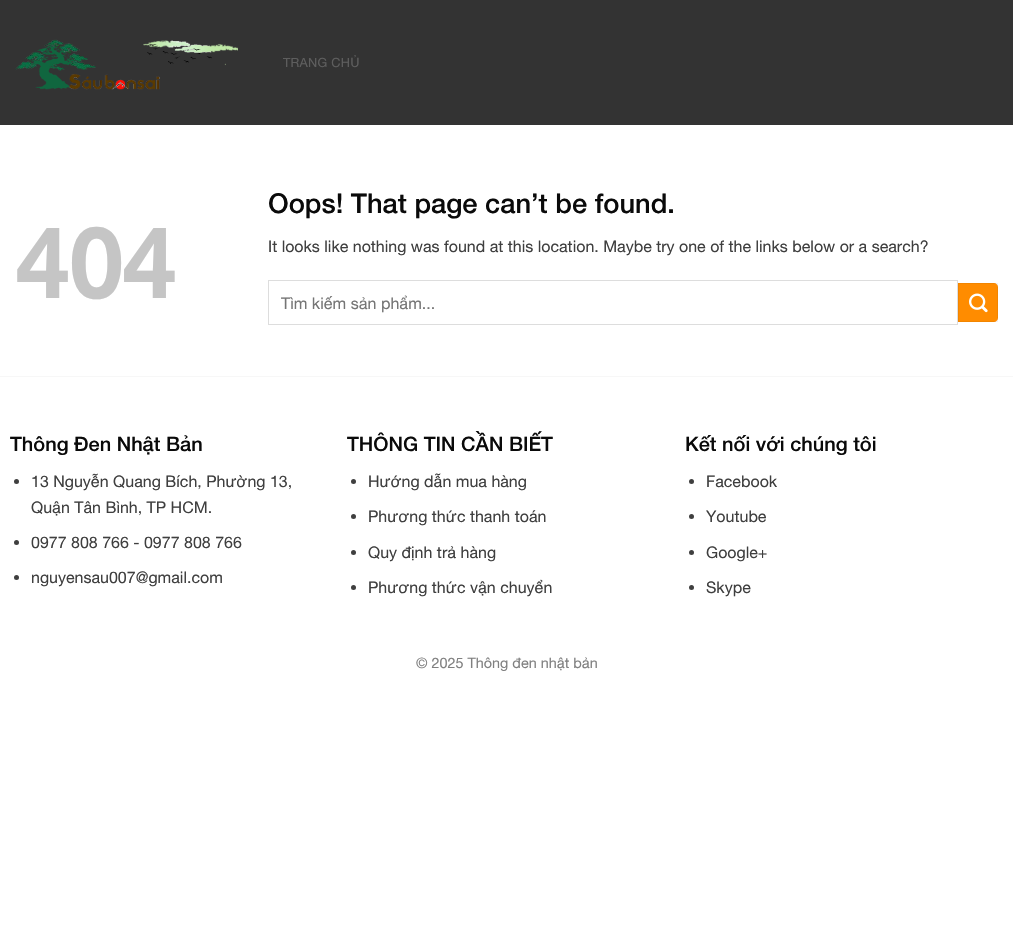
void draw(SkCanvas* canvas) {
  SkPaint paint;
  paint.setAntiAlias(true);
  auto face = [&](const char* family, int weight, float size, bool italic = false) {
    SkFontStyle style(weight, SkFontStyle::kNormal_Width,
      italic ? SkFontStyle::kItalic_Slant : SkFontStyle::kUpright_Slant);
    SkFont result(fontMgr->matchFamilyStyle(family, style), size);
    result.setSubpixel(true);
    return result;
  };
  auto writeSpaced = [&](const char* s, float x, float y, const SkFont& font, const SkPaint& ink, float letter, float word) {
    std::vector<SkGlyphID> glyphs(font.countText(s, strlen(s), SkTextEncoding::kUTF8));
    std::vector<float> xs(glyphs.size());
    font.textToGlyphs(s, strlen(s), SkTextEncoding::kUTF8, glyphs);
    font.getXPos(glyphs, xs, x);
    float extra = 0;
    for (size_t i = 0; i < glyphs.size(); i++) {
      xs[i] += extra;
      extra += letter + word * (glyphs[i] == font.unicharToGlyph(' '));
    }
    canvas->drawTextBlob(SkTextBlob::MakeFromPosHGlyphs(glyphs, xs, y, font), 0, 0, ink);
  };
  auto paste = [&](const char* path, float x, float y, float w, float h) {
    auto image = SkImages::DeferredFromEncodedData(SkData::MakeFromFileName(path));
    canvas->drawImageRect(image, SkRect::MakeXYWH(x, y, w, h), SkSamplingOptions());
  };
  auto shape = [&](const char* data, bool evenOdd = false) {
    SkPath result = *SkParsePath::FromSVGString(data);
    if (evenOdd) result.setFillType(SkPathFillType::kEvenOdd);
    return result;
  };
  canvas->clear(0xffffffff);
  paint.setColor(0xff333333);
  canvas->drawRect(SkRect::MakeXYWH(0, 0, 1013, 125), paint);
  paste("img/1.png", 15, 39, 223, 51);
  paint.setStroke(true);
  paint.setStrokeWidth(1);
  paint.setColor(0xffdddddd);
  canvas->drawRect(SkRect::MakeXYWH(268.5f, 280.5f, 689, 44), paint);
  paint.setStroke(false);
  paint.setColor(0xffff8c00);
  canvas->drawPath(shape("M958 283H994C996 283 998 285 998 287V318C998 320 996 322 994 322H958Z"), paint);
  paint.setStroke(true);
  paint.setColor(0x0d000000);
  canvas->drawRect(SkRect::MakeXYWH(958.5f, 283.5f, 39, 38), paint);
  paste("img/2.png", 969, 293, 19, 20);
  paint.setStroke(false);
  paint.setColor(0xfff7f7f7);
  canvas->drawRect(SkRect::MakeXYWH(0, 376, 1013, 1), paint);
  paint.setColor(0xff3f3f3f);
  canvas->drawCircle(16.5f, 481.5f, 2.5f, paint);
  canvas->drawCircle(16.5f, 542.5f, 2.5f, paint);
  canvas->drawCircle(16.5f, 577.5f, 2.5f, paint);
  canvas->drawCircle(353.5f, 481.5f, 2.5f, paint);
  canvas->drawCircle(353.5f, 516.5f, 2.5f, paint);
  canvas->drawCircle(353.5f, 552.5f, 2.5f, paint);
  canvas->drawCircle(353.5f, 587.5f, 2.5f, paint);
  canvas->drawCircle(691.5f, 481.5f, 2.5f, paint);
  canvas->drawCircle(691.5f, 516.5f, 2.5f, paint);
  canvas->drawCircle(691.5f, 552.5f, 2.5f, paint);
  canvas->drawCircle(691.5f, 587.5f, 2.5f, paint);
  auto f0 = face("Helvetica Neue", 400, 12.75f);
  paint.setColor(0xff5e5e5e);
  writeSpaced("TRANG CHỦ", 283, 67, f0, paint, 0.25f, 0);
  auto f1 = face("Helvetica Neue", 700, 96);
  paint.setColor(0xffc5c5c5);
  canvas->drawString("404", 15, 298, f1, paint);
  auto f2 = face("Helvetica Neue", 500, 27.25f);
  paint.setColor(0xff0a0a0a);
  canvas->drawString("Oops! That page can’t be found.", 268, 213, f2, paint);
  auto f3 = face("Helvetica Neue", 400, 16);
  paint.setColor(0xff3f3f3f);
  canvas->drawString("It looks like nothing was found at this location. Maybe try one of the links below or a search?", 268, 252, f3, paint);
  paint.setColor(0xff757575);
  canvas->drawString("Tìm kiếm sản phẩm...", 281, 309, f3, paint);
  auto f4 = face("Helvetica Neue", 500, 20);
  paint.setColor(0xff0a0a0a);
  canvas->drawString("Thông Đen Nhật Bản", 10, 451, f4, paint);
  paint.setColor(0xff3f3f3f);
  {
    const struct { const char* s; float x, y; } items[] = {
      {"13 Nguyễn Quang Bích, Phường 13,", 31, 487},
      {"Quận Tân Bình, TP HCM.", 31, 513},
      {"0977 808 766 - 0977 808 766", 31, 548},
      {"nguyensau007@gmail.com", 31, 583},
    };
    for (auto [s, x, y] : items) {
      canvas->drawString(s, x, y, f3, paint);
    }
  }
  paint.setColor(0xff0a0a0a);
  canvas->drawString("THÔNG TIN CẦN BIẾT", 347, 451, f4, paint);
  paint.setColor(0xff3f3f3f);
  {
    const struct { const char* s; float x, y; } items[] = {
      {"Hướng dẫn mua hàng", 368, 487},
      {"Phương thức thanh toán", 368, 522},
      {"Quy định trả hàng", 368, 558},
      {"Phương thức vận chuyển", 368, 593},
    };
    for (auto [s, x, y] : items) {
      canvas->drawString(s, x, y, f3, paint);
    }
  }
  paint.setColor(0xff0a0a0a);
  canvas->drawString("Kết nối với chúng tôi", 685, 451, f4, paint);
  paint.setColor(0xff3f3f3f);
  {
    const struct { const char* s; float x, y; } items[] = {
      {"Facebook", 706, 487},
      {"Youtube", 706, 522},
      {"Google+", 706, 558},
      {"Skype", 706, 593},
    };
    for (auto [s, x, y] : items) {
      canvas->drawString(s, x, y, f3, paint);
    }
  }
  auto f5 = face("Helvetica Neue", 400, 14.4f);
  paint.setColor(0xff808080);
  canvas->drawString("© 2025 Thông đen nhật bản", 416, 668, f5, paint);
}
